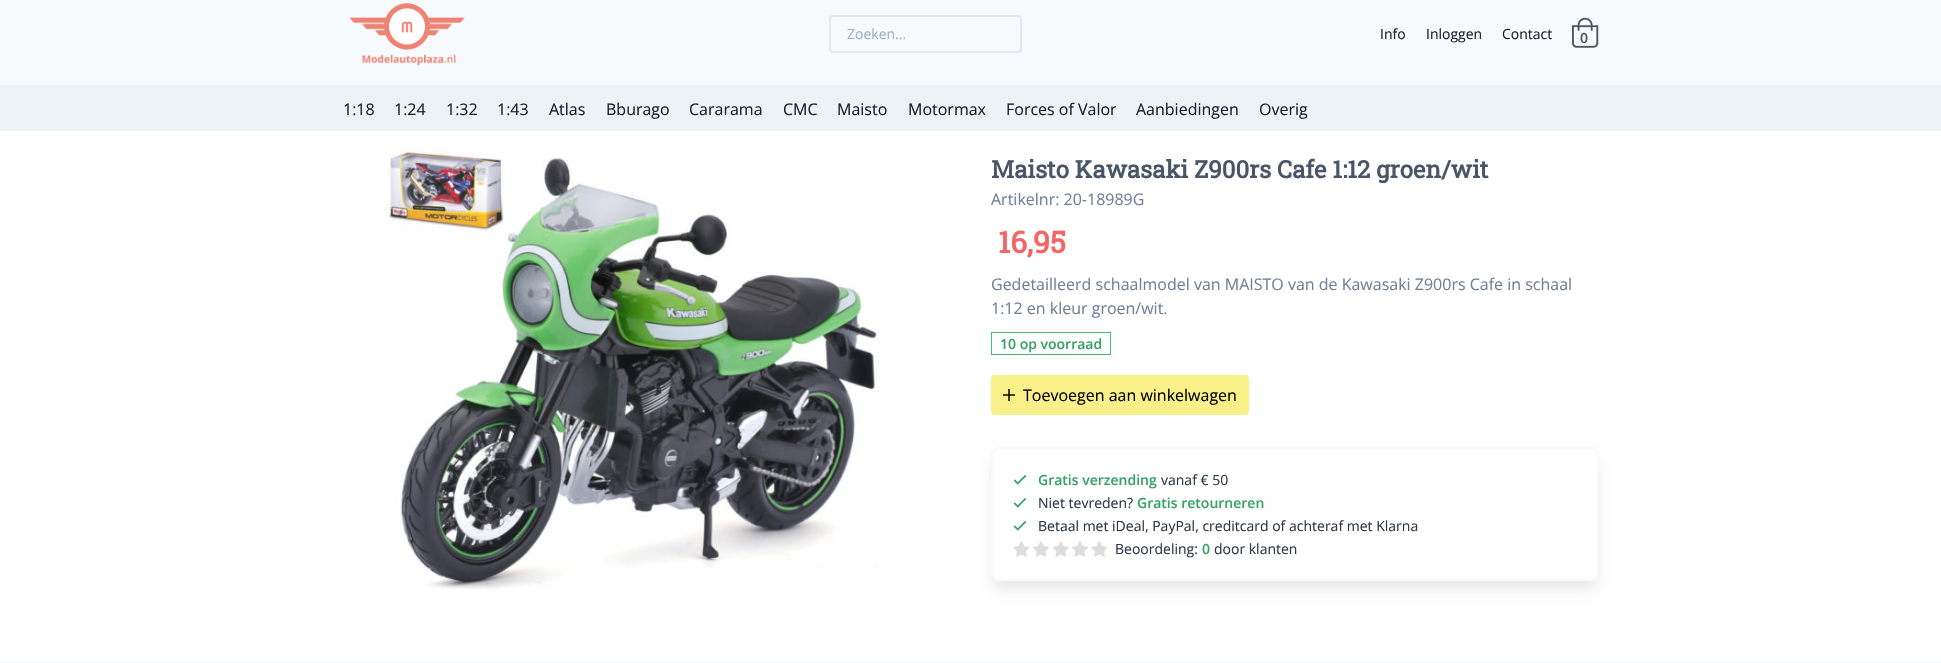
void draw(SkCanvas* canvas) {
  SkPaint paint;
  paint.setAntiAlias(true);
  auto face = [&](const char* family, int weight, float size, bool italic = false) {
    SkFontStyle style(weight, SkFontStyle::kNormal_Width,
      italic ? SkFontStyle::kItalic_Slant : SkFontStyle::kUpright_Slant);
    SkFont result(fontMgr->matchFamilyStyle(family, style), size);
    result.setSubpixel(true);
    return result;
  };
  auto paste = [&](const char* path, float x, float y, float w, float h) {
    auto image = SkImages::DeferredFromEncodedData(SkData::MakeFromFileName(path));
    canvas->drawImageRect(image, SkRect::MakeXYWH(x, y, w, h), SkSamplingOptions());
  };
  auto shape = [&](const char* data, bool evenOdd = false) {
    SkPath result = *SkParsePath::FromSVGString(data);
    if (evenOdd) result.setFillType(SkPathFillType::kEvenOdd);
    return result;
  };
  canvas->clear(0xffffffff);
  paint.setColor(0xfff7fafc);
  canvas->drawRect(SkRect::MakeXYWH(0, 0, 1941, 85), paint);
  paste("img/1.png", 349, 3, 116, 63);
  paint.setStroke(true);
  paint.setStrokeWidth(2);
  paint.setColor(0xffe2e8f0);
  canvas->drawRoundRect(SkRect::MakeXYWH(830, 16, 191, 36), 3, 3, paint);
  paste("img/2.png", 1572, 17, 27, 31);
  paint.setStroke(false);
  paint.setColor(0xffedf2f7);
  canvas->drawRect(SkRect::MakeXYWH(0, 85, 1941, 46), paint);
  paste("img/3.png", 387, 151, 492, 439);
  paint.setStroke(true);
  paint.setStrokeWidth(1);
  paint.setColor(0xff48bb78);
  canvas->drawRect(SkRect::MakeXYWH(991.5f, 332.5f, 119, 22), paint);
  paint.setStroke(false);
  paint.setColor(0xfffaf089);
  canvas->drawRoundRect(SkRect::MakeXYWH(991, 375, 258, 40), 4, 4, paint);
  paste("img/4.png", 1003, 389, 12, 12);
  canvas->save();
  canvas->clipPath(shape("M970 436H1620V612H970ZM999 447H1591C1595.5 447 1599 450.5 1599 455V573C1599 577.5 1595.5 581 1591 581H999C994.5 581 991 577.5 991 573V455C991 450.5 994.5 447 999 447Z", true), true);
  paint.setColor(0x1a000000);
  paint.setMaskFilter(SkMaskFilter::MakeBlur(kNormal_SkBlurStyle, 7.5f));
  canvas->drawRoundRect(SkRect::MakeXYWH(994, 460, 602, 128), 5, 5, paint);
  paint.setMaskFilter(nullptr);
  canvas->restore();
  paint.setStroke(true);
  paint.setStrokeWidth(2);
  paint.setColor(0xfff7fafc);
  canvas->drawRoundRect(SkRect::MakeXYWH(992, 448, 606, 132), 7, 7, paint);
  paste("img/5.png", 1013, 475, 14, 10);
  paste("img/5.png", 1013, 498, 14, 10);
  paste("img/5.png", 1013, 521, 14, 10);
  paste("img/6.png", 1013, 541, 94, 16);
  paint.setStroke(false);
  canvas->drawRect(SkRect::MakeXYWH(0, 661, 1941, 2), paint);
  auto f0 = face("Open Sans", 400, 14);
  paint.setColor(0xffa0aec0);
  canvas->drawString("Zoeken...", 847, 39, f0, paint);
  paint.setColor(0xff1a202c);
  {
    const struct { const char* s; float x, y; } items[] = {
      {"Info", 1380, 39},
      {"Inloggen", 1426, 39},
      {"Contact", 1502, 39},
    };
    for (auto [s, x, y] : items) {
      canvas->drawString(s, x, y, f0, paint);
    }
  }
  auto f1 = face("Open Sans", 600, 14);
  paint.setColor(0xff4a5568);
  canvas->drawString("0", 1580, 43, f1, paint);
  auto f2 = face("Open Sans", 400, 16);
  paint.setColor(0xff1a202c);
  {
    const struct { const char* s; float x, y; } items[] = {
      {"1:18", 343, 115},
      {"1:24", 394, 115},
      {"1:32", 446, 115},
      {"1:43", 497, 115},
      {"Atlas", 549, 115},
      {"Bburago", 606, 115},
      {"Cararama", 689, 115},
      {"CMC", 783, 115},
      {"Maisto", 837, 115},
      {"Motormax", 908, 115},
      {"Forces of Valor", 1006, 115},
      {"Aanbiedingen", 1136, 115},
      {"Overig", 1259, 115},
    };
    for (auto [s, x, y] : items) {
      canvas->drawString(s, x, y, f2, paint);
    }
  }
  auto f3 = face("Roboto Slab", 700, 24);
  paint.setColor(0xff4a5568);
  canvas->drawString("Maisto Kawasaki Z900rs Cafe 1:12 groen/wit", 991, 178, f3, paint);
  paint.setColor(0xff718096);
  canvas->drawString("Artikelnr: 20-18989G", 991, 205, f2, paint);
  auto f4 = face("Roboto Slab", 700, 30);
  paint.setColor(0xfff56565);
  canvas->drawString("16,95", 998, 253, f4, paint);
  paint.setColor(0xff718096);
  canvas->drawString("Gedetailleerd schaalmodel van MAISTO van de Kawasaki Z900rs Cafe in schaal", 991, 290, f2, paint);
  canvas->drawString("1:12 en kleur groen/wit.", 991, 314, f2, paint);
  paint.setColor(0xff38a169);
  canvas->drawString("10 op voorraad", 1000, 349, f1, paint);
  paint.setColor(0xff000000);
  canvas->drawString("Toevoegen aan winkelwagen", 1023, 401, f2, paint);
  paint.setColor(0xff38a169);
  canvas->drawString("Gratis verzending", 1038, 485, f1, paint);
  paint.setColor(0xff2d3748);
  canvas->drawString("vanaf € 50", 1161, 485, f0, paint);
  canvas->drawString("Niet tevreden?", 1038, 508, f0, paint);
  paint.setColor(0xff38a169);
  canvas->drawString("Gratis retourneren", 1137, 508, f1, paint);
  paint.setColor(0xff2d3748);
  canvas->drawString("Betaal met iDeal, PayPal, creditcard of achteraf met Klarna", 1038, 531, f0, paint);
  canvas->drawString("Beoordeling:", 1115, 554, f0, paint);
  paint.setColor(0xff38a169);
  canvas->drawString("0", 1202, 554, f1, paint);
  paint.setColor(0xff2d3748);
  canvas->drawString("door klanten", 1214, 554, f0, paint);
}
